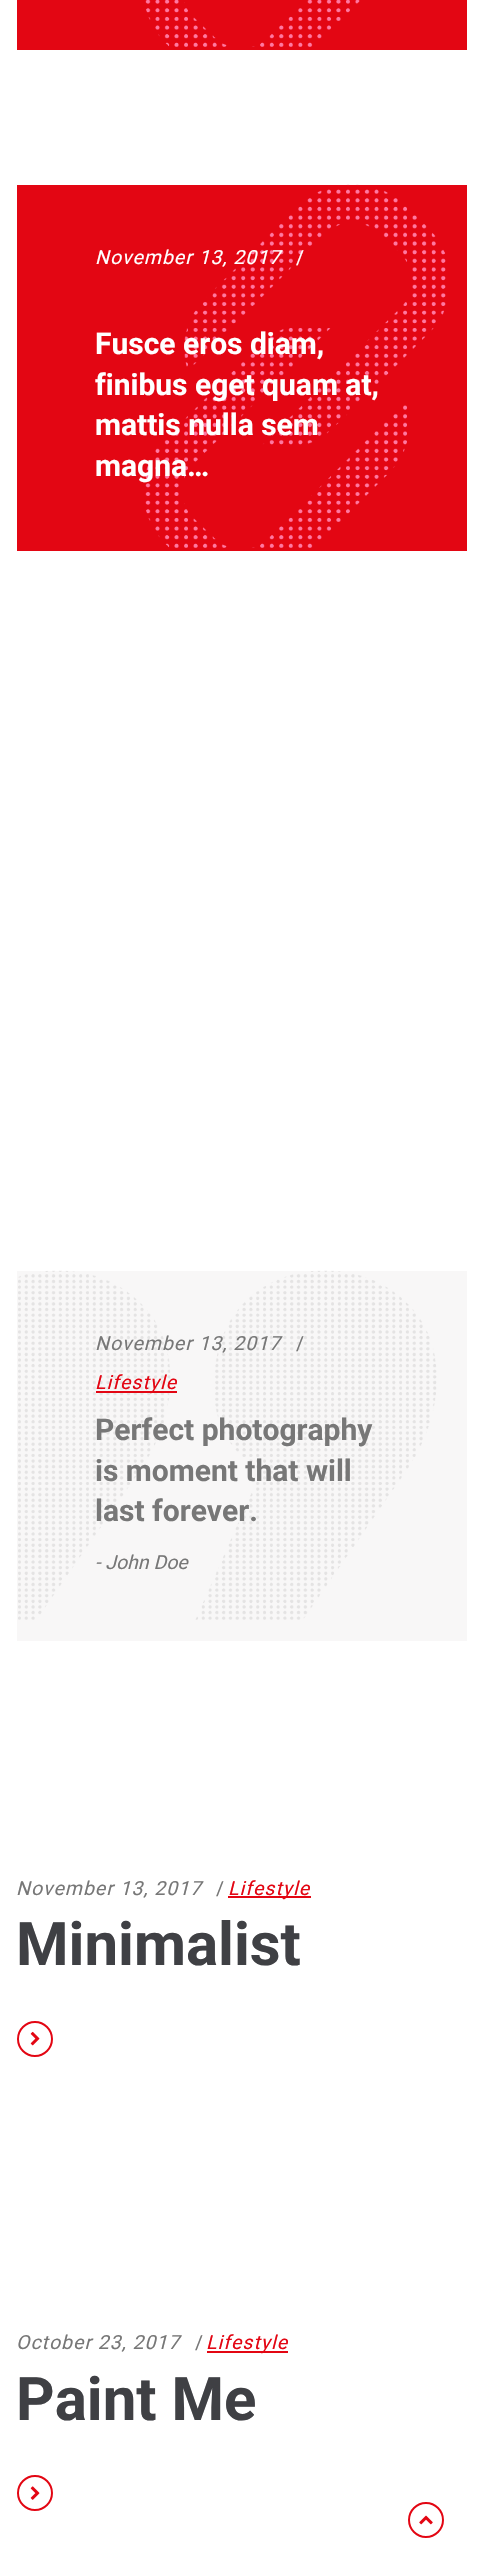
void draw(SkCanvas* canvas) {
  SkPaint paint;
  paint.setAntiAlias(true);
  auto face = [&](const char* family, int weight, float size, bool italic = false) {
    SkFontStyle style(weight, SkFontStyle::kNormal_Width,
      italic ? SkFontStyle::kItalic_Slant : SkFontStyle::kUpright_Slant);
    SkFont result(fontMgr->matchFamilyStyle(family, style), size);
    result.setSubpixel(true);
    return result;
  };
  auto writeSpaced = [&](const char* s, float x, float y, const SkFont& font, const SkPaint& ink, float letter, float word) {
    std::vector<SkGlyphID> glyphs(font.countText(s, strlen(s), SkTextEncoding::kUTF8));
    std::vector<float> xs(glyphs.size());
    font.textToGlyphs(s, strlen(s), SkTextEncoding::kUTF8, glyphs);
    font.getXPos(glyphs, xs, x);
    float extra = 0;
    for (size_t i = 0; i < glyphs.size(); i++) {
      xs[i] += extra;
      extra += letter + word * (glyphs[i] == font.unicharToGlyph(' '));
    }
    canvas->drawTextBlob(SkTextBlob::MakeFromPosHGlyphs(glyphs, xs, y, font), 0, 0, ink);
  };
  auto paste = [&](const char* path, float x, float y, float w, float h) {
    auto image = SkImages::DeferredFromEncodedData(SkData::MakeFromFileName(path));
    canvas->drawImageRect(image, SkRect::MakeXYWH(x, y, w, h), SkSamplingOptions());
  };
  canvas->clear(0xffffffff);
  paint.setColor(0xffe30613);
  canvas->drawRect(SkRect::MakeXYWH(17, 0, 450, 50), paint);
  paste("img/1.png", 145, 0, 215, 47);
  canvas->drawRect(SkRect::MakeXYWH(17, 185, 450, 366), paint);
  paste("img/2.png", 145, 184, 301, 364);
  paint.setColor(0xfff8f7f7);
  canvas->drawRect(SkRect::MakeXYWH(17, 1271, 450, 370), paint);
  paste("img/3.png", 18, 1270, 419, 350);
  paint.setColor(0xffe30613);
  canvas->drawRect(SkRect::MakeXYWH(96, 1391, 81, 2), paint);
  canvas->drawRect(SkRect::MakeXYWH(228, 1896, 83, 2), paint);
  paint.setStroke(true);
  paint.setStrokeWidth(2);
  canvas->drawCircle(35, 2039, 17, paint);
  paste("img/4.png", 30, 2031, 10, 15);
  paint.setStroke(false);
  canvas->drawRect(SkRect::MakeXYWH(207, 2351, 81, 2), paint);
  paint.setStroke(true);
  canvas->drawCircle(35, 2493, 17, paint);
  paste("img/5.png", 30, 2486, 10, 14);
  canvas->drawCircle(426, 2520, 17, paint);
  paste("img/6.png", 419, 2515, 14, 10);
  auto f0 = face("Roboto", 400, 19.5f, true);
  paint.setStroke(false);
  paint.setColor(0xffffffff);
  writeSpaced("November 13, 2017", 95, 264, f0, paint, 1, 0);
  auto f1 = face("Roboto", 400, 19.5f);
  writeSpaced("/", 296, 264, f1, paint, 1, 0);
  auto f2 = face("Roboto", 700, 30);
  {
    const struct { const char* s; float x, y; } items[] = {
      {"Fusce eros diam,", 95, 354},
      {"finibus eget quam at,", 95, 395},
      {"mattis nulla sem", 95, 435},
      {"magna…", 95, 476},
    };
    for (auto [s, x, y] : items) {
      canvas->drawString(s, x, y, f2, paint);
    }
  }
  paint.setColor(0xff777777);
  writeSpaced("November 13, 2017", 95, 1350, f0, paint, 1, 0);
  writeSpaced("/", 296, 1350, f1, paint, 1, 0);
  paint.setColor(0xffe30613);
  writeSpaced("Lifestyle", 95, 1389, f0, paint, 1, 0);
  paint.setColor(0xff777777);
  {
    const struct { const char* s; float x, y; } items[] = {
      {"Perfect photography", 95, 1440},
      {"is moment that will", 95, 1481},
      {"last forever.", 95, 1521},
    };
    for (auto [s, x, y] : items) {
      canvas->drawString(s, x, y, f2, paint);
    }
  }
  canvas->drawString("- John Doe", 95, 1569, f0, paint);
  writeSpaced("November 13, 2017", 16, 1895, f0, paint, 1, 0);
  writeSpaced("/", 216, 1895, f1, paint, 1, 0);
  paint.setColor(0xffe30613);
  writeSpaced("Lifestyle", 228, 1895, f0, paint, 1, 0);
  auto f3 = face("Roboto", 700, 60);
  paint.setColor(0xff3f4044);
  canvas->drawString("Minimalist", 16, 1965, f3, paint);
  paint.setColor(0xff777777);
  writeSpaced("October 23, 2017", 16, 2349, f0, paint, 1, 0);
  writeSpaced("/", 195, 2349, f1, paint, 1, 0);
  paint.setColor(0xffe30613);
  writeSpaced("Lifestyle", 206, 2349, f0, paint, 1, 0);
  paint.setColor(0xff3f4044);
  canvas->drawString("Paint Me", 16, 2420, f3, paint);
}
